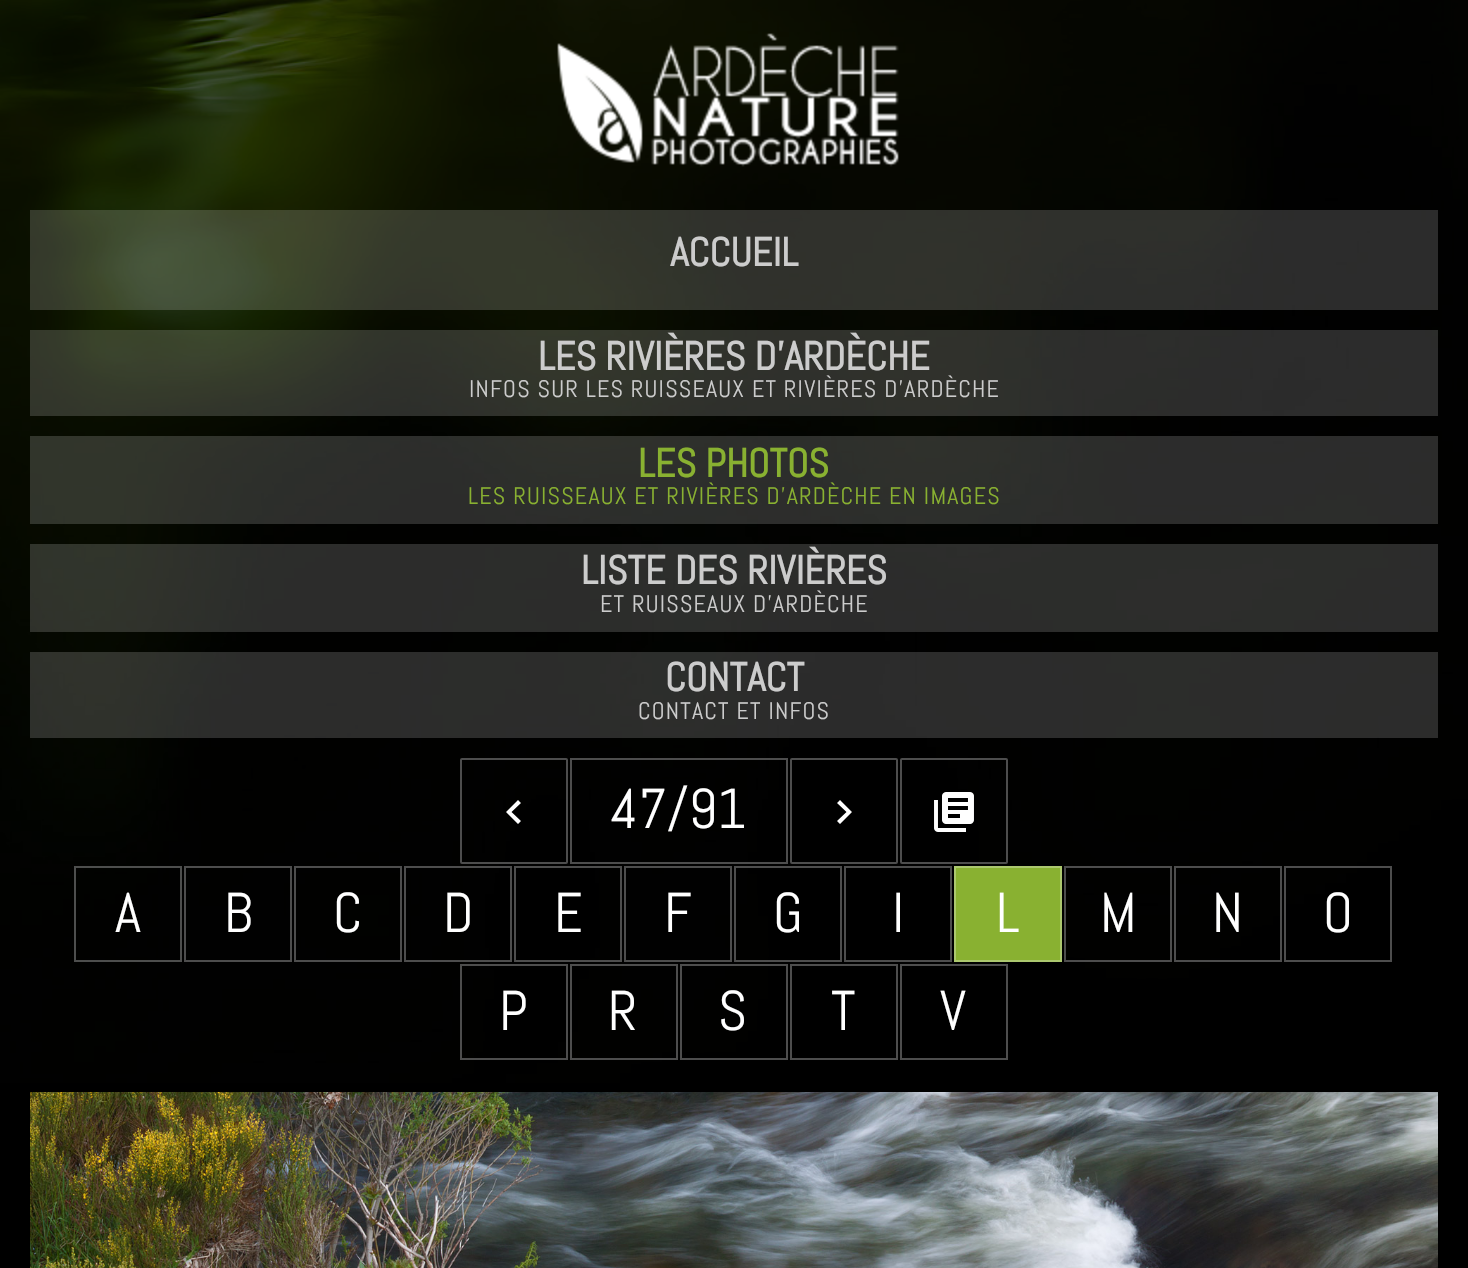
void draw(SkCanvas* canvas) {
  SkPaint paint;
  paint.setAntiAlias(true);
  auto face = [&](const char* family, int weight, float size, bool italic = false) {
    SkFontStyle style(weight, SkFontStyle::kNormal_Width,
      italic ? SkFontStyle::kItalic_Slant : SkFontStyle::kUpright_Slant);
    SkFont result(fontMgr->matchFamilyStyle(family, style), size);
    result.setSubpixel(true);
    return result;
  };
  auto writeSpaced = [&](const char* s, float x, float y, const SkFont& font, const SkPaint& ink, float letter, float word) {
    std::vector<SkGlyphID> glyphs(font.countText(s, strlen(s), SkTextEncoding::kUTF8));
    std::vector<float> xs(glyphs.size());
    font.textToGlyphs(s, strlen(s), SkTextEncoding::kUTF8, glyphs);
    font.getXPos(glyphs, xs, x);
    float extra = 0;
    for (size_t i = 0; i < glyphs.size(); i++) {
      xs[i] += extra;
      extra += letter + word * (glyphs[i] == font.unicharToGlyph(' '));
    }
    canvas->drawTextBlob(SkTextBlob::MakeFromPosHGlyphs(glyphs, xs, y, font), 0, 0, ink);
  };
  auto paste = [&](const char* path, float x, float y, float w, float h) {
    auto image = SkImages::DeferredFromEncodedData(SkData::MakeFromFileName(path));
    canvas->drawImageRect(image, SkRect::MakeXYWH(x, y, w, h), SkSamplingOptions());
  };
  auto shape = [&](const char* data, bool evenOdd = false) {
    SkPath result = *SkParsePath::FromSVGString(data);
    if (evenOdd) result.setFillType(SkPathFillType::kEvenOdd);
    return result;
  };
  canvas->clear(0xff000000);
  paste("img/1.png", 0, 0, 1468, 1083);
  paste("img/2.png", 557, 33, 342, 134);
  {
    const struct { float x, y, w, h; SkColor color; } items[] = {
      {30, 210, 1408, 100, 0x2bffffff},
      {30, 330, 1408, 86, 0x2bffffff},
      {30, 436, 1408, 88, 0x2bffffff},
      {30, 544, 1408, 88, 0x2bffffff},
      {30, 652, 1408, 86, 0x2bffffff},
    };
    for (auto [x, y, w, h, color] : items) {
      paint.setColor(color);
      canvas->drawRect(SkRect::MakeXYWH(x, y, w, h), paint);
    }
  }
  paint.setStroke(true);
  paint.setStrokeWidth(2);
  paint.setColor(0xff4d4d4d);
  canvas->drawRoundRect(SkRect::MakeXYWH(461, 759, 106, 104), 1, 1, paint);
  paint.setStroke(false);
  paint.setColor(0xffffffff);
  canvas->drawPath(shape("M521 821L518 824L506 812L518 800L521 803L511.5 812Z"), paint);
  paint.setStroke(true);
  paint.setColor(0xff4d4d4d);
  canvas->drawRect(SkRect::MakeXYWH(571, 759, 216, 104), paint);
  canvas->drawRoundRect(SkRect::MakeXYWH(791, 759, 106, 104), 1, 1, paint);
  paint.setStroke(false);
  paint.setColor(0xffffffff);
  canvas->drawPath(shape("M837 821L846.5 812L837 803L840 800L852 812L840 824Z"), paint);
  paint.setStroke(true);
  paint.setColor(0xff4d4d4d);
  canvas->drawRoundRect(SkRect::MakeXYWH(901, 759, 106, 104), 1, 1, paint);
  paste("img/3.png", 934, 792, 40, 40);
  paint.setColor(0xff4d4e4d);
  canvas->drawRect(SkRect::MakeXYWH(75, 867, 106, 94), paint);
  paint.setColor(0xff4d4d4d);
  canvas->drawRect(SkRect::MakeXYWH(185, 867, 106, 94), paint);
  canvas->drawRect(SkRect::MakeXYWH(295, 867, 106, 94), paint);
  canvas->drawRect(SkRect::MakeXYWH(405, 867, 106, 94), paint);
  canvas->drawRect(SkRect::MakeXYWH(515, 867, 106, 94), paint);
  canvas->drawRect(SkRect::MakeXYWH(625, 867, 106, 94), paint);
  canvas->drawRect(SkRect::MakeXYWH(735, 867, 106, 94), paint);
  canvas->drawRect(SkRect::MakeXYWH(845, 867, 106, 94), paint);
  paint.setStroke(false);
  paint.setColor(0xff89b131);
  canvas->drawRect(SkRect::MakeXYWH(955, 867, 106, 94), paint);
  paint.setStroke(true);
  paint.setColor(0xffacc86f);
  canvas->drawRect(SkRect::MakeXYWH(955, 867, 106, 94), paint);
  paint.setColor(0xff4d4d4d);
  canvas->drawRect(SkRect::MakeXYWH(1065, 867, 106, 94), paint);
  canvas->drawRect(SkRect::MakeXYWH(1175, 867, 106, 94), paint);
  canvas->drawRect(SkRect::MakeXYWH(1285, 867, 106, 94), paint);
  canvas->drawRect(SkRect::MakeXYWH(461, 965, 106, 94), paint);
  canvas->drawRect(SkRect::MakeXYWH(571, 965, 106, 94), paint);
  canvas->drawRect(SkRect::MakeXYWH(681, 965, 106, 94), paint);
  canvas->drawRect(SkRect::MakeXYWH(791, 965, 106, 94), paint);
  canvas->drawRect(SkRect::MakeXYWH(901, 965, 106, 94), paint);
  paste("img/4.png", 30, 1092, 1408, 176);
  auto f0 = face("Abel", 700, 40);
  paint.setStroke(false);
  paint.setColor(0xffcccccc);
  canvas->drawString("ACCUEIL", 670, 266, f0, paint);
  canvas->drawString("LES RIVIÈRES D'ARDÈCHE", 538, 370, f0, paint);
  auto f1 = face("Abel", 400, 24);
  writeSpaced("INFOS SUR LES RUISSEAUX ET RIVIÈRES D'ARDÈCHE", 469, 397, f1, paint, 1.2f, 0);
  paint.setColor(0xff89b131);
  canvas->drawString("LES PHOTOS", 638, 477, f0, paint);
  writeSpaced("LES RUISSEAUX ET RIVIÈRES D'ARDÈCHE EN IMAGES", 468, 504, f1, paint, 1.2f, 0);
  paint.setColor(0xffcccccc);
  canvas->drawString("LISTE DES RIVIÈRES", 581, 584, f0, paint);
  writeSpaced("ET RUISSEAUX D'ARDÈCHE", 600, 612, f1, paint, 1.2f, 0);
  canvas->drawString("CONTACT", 665, 691, f0, paint);
  writeSpaced("CONTACT ET INFOS", 638, 719, f1, paint, 1.2f, 0);
  auto f2 = face("Abel", 400, 56);
  paint.setColor(0xffffffff);
  {
    const struct { const char* s; float x, y; } items[] = {
      {"47/91", 610, 828},
      {"A", 115, 932},
      {"B", 224, 932},
      {"C", 333, 932},
      {"D", 443, 932},
      {"E", 554, 932},
      {"F", 664, 932},
      {"G", 773, 932},
      {"I", 892, 932},
      {"L", 996, 932},
      {"M", 1100, 932},
      {"N", 1212, 932},
      {"O", 1323, 932},
      {"P", 499, 1030},
      {"R", 608, 1030},
      {"S", 718, 1030},
      {"T", 831, 1030},
      {"V", 940, 1030},
    };
    for (auto [s, x, y] : items) {
      canvas->drawString(s, x, y, f2, paint);
    }
  }
}
